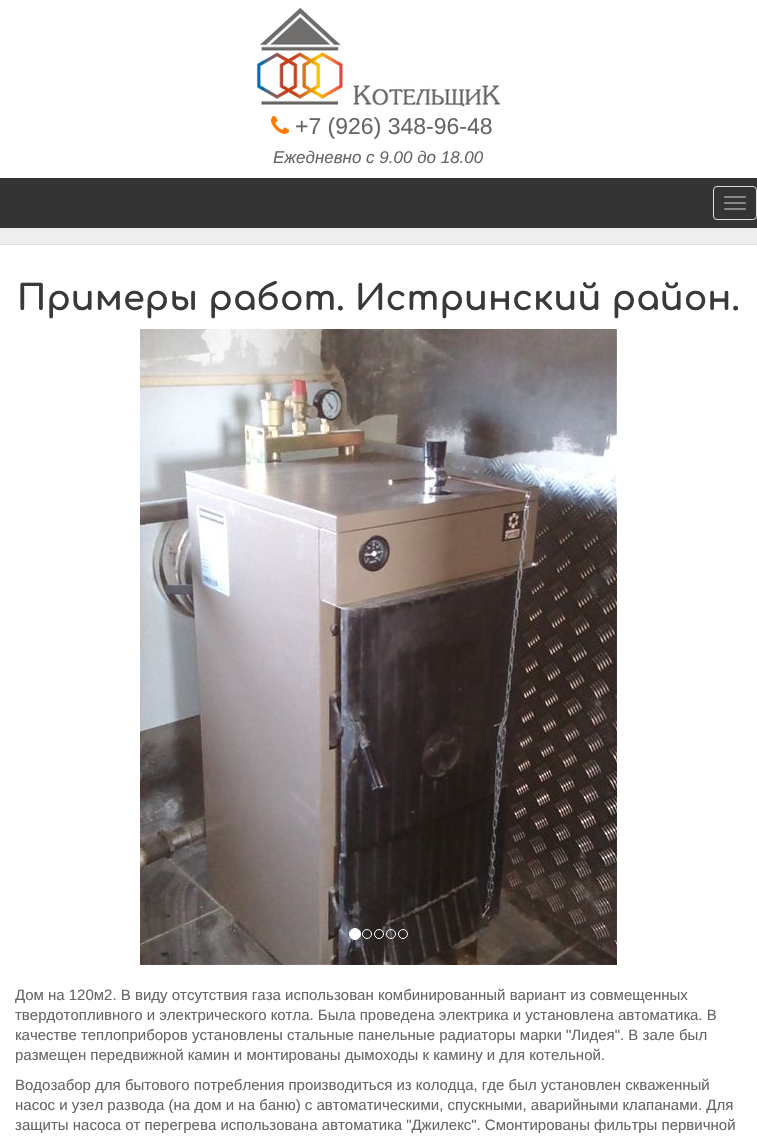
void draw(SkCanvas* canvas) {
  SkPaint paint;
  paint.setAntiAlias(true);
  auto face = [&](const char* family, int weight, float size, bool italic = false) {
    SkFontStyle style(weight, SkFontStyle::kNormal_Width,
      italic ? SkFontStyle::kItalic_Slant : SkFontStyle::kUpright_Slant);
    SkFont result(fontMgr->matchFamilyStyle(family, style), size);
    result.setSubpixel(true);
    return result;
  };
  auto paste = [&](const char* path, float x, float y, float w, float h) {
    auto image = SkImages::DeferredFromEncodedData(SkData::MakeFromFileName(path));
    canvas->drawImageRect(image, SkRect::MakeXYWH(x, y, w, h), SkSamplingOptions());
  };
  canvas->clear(0xffeeeeee);
  paint.setColor(0xffffffff);
  canvas->drawRect(SkRect::MakeXYWH(0, 0, 757, 178), paint);
  paste("img/1.png", 256, 8, 245, 99);
  paste("img/2.png", 271, 115, 19, 19);
  paint.setColor(0xff343434);
  canvas->drawRect(SkRect::MakeXYWH(0, 178, 757, 50), paint);
  paint.setStroke(true);
  paint.setStrokeWidth(1);
  paint.setColor(0xffdddddd);
  canvas->drawRoundRect(SkRect::MakeXYWH(713.5f, 186.5f, 43, 33), 3.5f, 3.5f, paint);
  paint.setStroke(false);
  paint.setColor(0xff888888);
  canvas->drawRoundRect(SkRect::MakeXYWH(724, 196, 22, 2), 1, 1, paint);
  canvas->drawRoundRect(SkRect::MakeXYWH(724, 202, 22, 2), 1, 1, paint);
  canvas->drawRoundRect(SkRect::MakeXYWH(724, 208, 22, 2), 1, 1, paint);
  paint.setColor(0xffffffff);
  canvas->drawRect(SkRect::MakeXYWH(0, 245, 757, 901), paint);
  paint.setColor(0xffdddddd);
  canvas->drawRect(SkRect::MakeXYWH(0, 244, 757, 1), paint);
  paste("img/3.png", 140, 329, 477, 636);
  paint.setColor(0xffffffff);
  canvas->drawCircle(355, 934, 5.5f, paint);
  paint.setStroke(true);
  canvas->drawCircle(355, 934, 5.5f, paint);
  canvas->drawCircle(367, 934, 4.5f, paint);
  canvas->drawCircle(379, 934, 4.5f, paint);
  canvas->drawCircle(391, 934, 4.5f, paint);
  canvas->drawCircle(403, 934, 4.5f, paint);
  auto f0 = face("Liberation Sans", 400, 23);
  paint.setStroke(false);
  paint.setColor(0xff666666);
  canvas->drawString("+7 (926) 348-96-48", 295, 134, f0, paint);
  auto f1 = face("Liberation Sans", 400, 17, true);
  canvas->drawString("Ежедневно с 9.00 до 18.00", 273, 163, f1, paint);
  auto f2 = face("Comfortaa", 700, 35);
  paint.setColor(0xff393939);
  canvas->drawString("Примеры работ. Истринский район.", 17, 310, f2, paint);
  auto f3 = face("Liberation Sans", 400, 15);
  paint.setColor(0xff666666);
  {
    const struct { const char* s; float x, y; } items[] = {
      {"Дом на 120м2. В виду отсутствия газа использован комбинированный вариант из совмещенных", 15, 1000},
      {"твердотопливного и электрического котла. Была проведена электрика и установлена автоматика. В", 15, 1020},
      {"качестве теплоприборов установлены стальные панельные радиаторы марки \"Лидея\". В зале был", 15, 1040},
      {"размещен передвижной камин и монтированы дымоходы к камину и для котельной.", 15, 1060},
      {"Водозабор для бытового потребления производиться из колодца, где был установлен скваженный", 15, 1090},
      {"насос и узел развода (на дом и на баню) с автоматическими, спускными, аварийными клапанами. Для", 15, 1110},
      {"защиты насоса от перегрева использована автоматика \"Джилекс\". Смонтированы фильтры первичной", 15, 1130},
    };
    for (auto [s, x, y] : items) {
      canvas->drawString(s, x, y, f3, paint);
    }
  }
}
